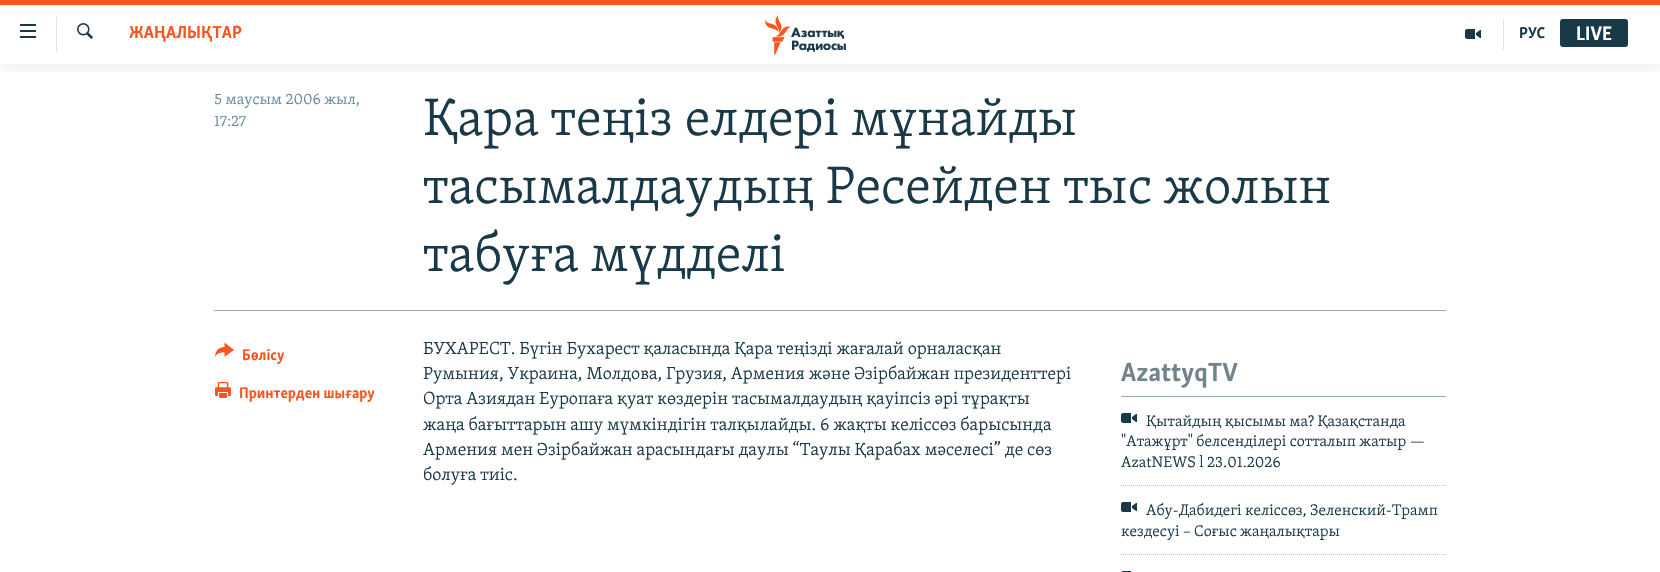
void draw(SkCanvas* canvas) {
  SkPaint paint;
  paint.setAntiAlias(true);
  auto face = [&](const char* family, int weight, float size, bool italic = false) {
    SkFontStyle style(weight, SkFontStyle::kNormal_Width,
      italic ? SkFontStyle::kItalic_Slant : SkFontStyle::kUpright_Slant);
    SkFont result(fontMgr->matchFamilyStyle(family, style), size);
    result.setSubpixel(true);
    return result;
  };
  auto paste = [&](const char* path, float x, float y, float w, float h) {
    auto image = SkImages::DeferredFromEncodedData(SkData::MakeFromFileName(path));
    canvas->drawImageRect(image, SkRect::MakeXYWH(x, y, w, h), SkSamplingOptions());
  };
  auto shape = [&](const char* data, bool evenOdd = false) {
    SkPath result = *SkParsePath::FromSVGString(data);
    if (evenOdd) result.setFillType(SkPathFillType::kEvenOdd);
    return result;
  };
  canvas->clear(0xffffffff);
  canvas->save();
  canvas->clipRect(SkRect::MakeXYWH(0, 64, 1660, 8));
  paint.setColor(0x1a000000);
  paint.setMaskFilter(SkMaskFilter::MakeBlur(kNormal_SkBlurStyle, 10));
  canvas->drawRect(SkRect::MakeXYWH(0, 0, 1660, 64), paint);
  paint.setMaskFilter(nullptr);
  canvas->restore();
  paint.setColor(0xfffa5420);
  canvas->drawRect(SkRect::MakeXYWH(0, 0, 1660, 5), paint);
  paste("img/1.png", 20, 24, 16, 14);
  paint.setColor(0xffdce4e8);
  canvas->drawRect(SkRect::MakeXYWH(56, 17, 1, 35), paint);
  paste("img/2.png", 77, 23, 16, 16);
  paste("img/3.png", 765, 15, 81, 40);
  canvas->drawRect(SkRect::MakeXYWH(1503, 19, 1, 31), paint);
  paste("img/4.png", 1465, 29, 16, 10);
  paint.setColor(0xff1a3948);
  canvas->drawRoundRect(SkRect::MakeXYWH(1560, 19, 68, 28), 3, 3, paint);
  paint.setColor(0xff95adb9);
  canvas->drawRect(SkRect::MakeXYWH(214, 310, 1232, 1), paint);
  paste("img/5.png", 215, 342, 19, 15);
  paste("img/6.png", 215, 382, 16, 16);
  canvas->drawRect(SkRect::MakeXYWH(1121, 396, 325, 1), paint);
  paste("img/4.png", 1121, 413, 16, 10);
  paint.setStroke(true);
  paint.setStrokeWidth(1);
  paint.setColor(0xffb4c5cd);
  paint.setPathEffect(SkDashPathEffect::Make({{1, 1}}, 0));
  canvas->drawPath(shape("M1121 485.5H1446"), paint);
  paint.setPathEffect(nullptr);
  paste("img/4.png", 1121, 502, 16, 10);
  paint.setPathEffect(SkDashPathEffect::Make({{1, 1}}, 0));
  canvas->drawPath(shape("M1121 554.5H1446"), paint);
  paint.setPathEffect(nullptr);
  paste("img/7.png", 1121, 571, 10, 1);
  auto f0 = face("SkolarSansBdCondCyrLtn", 700, 18);
  paint.setStroke(false);
  paint.setColor(0xfffa5420);
  canvas->drawString("ЖАҢАЛЫҚТАР", 129, 38, f0, paint);
  auto f1 = face("SkolarSansBdCondCyrLtn", 700, 16);
  paint.setColor(0xff1a3948);
  canvas->drawString("РУС", 1519, 38, f1, paint);
  auto f2 = face("SkolarSansBdCondCyrLtn", 700, 20);
  paint.setColor(0xffffffff);
  canvas->drawString("LIVE", 1576, 40, f2, paint);
  auto f3 = face("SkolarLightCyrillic", 300, 15.75f);
  paint.setColor(0xff678a9b);
  canvas->drawString("5 маусым 2006 жыл,", 214, 104, f3, paint);
  canvas->drawString("17:27", 214, 126, f3, paint);
  auto f4 = face("SkolarLightCyrillic", 300, 54);
  paint.setColor(0xff1a3948);
  {
    const struct { const char* s; float x, y; } items[] = {
      {"Қара теңіз елдері мұнайды", 423, 135},
      {"тасымалдаудың Ресейден тыс жолын", 423, 203},
      {"табуға мүдделі", 423, 271},
    };
    for (auto [s, x, y] : items) {
      canvas->drawString(s, x, y, f4, paint);
    }
  }
  auto f5 = face("SkolarSansBdCondCyrLtn", 700, 15.75f);
  paint.setColor(0xfffa5420);
  canvas->drawString("Бөлісу", 242, 360, f5, paint);
  canvas->drawString("Принтерден шығару", 239, 398, f5, paint);
  auto f6 = face("SkolarLightCyrillic", 300, 18);
  paint.setColor(0xff1a3948);
  {
    const struct { const char* s; float x, y; } items[] = {
      {"БУХАРЕСТ. Бүгін Бухарест қаласында Қара теңізді жағалай орналасқан", 423, 354},
      {"Румыния, Украина, Молдова, Грузия, Армения және Әзірбайжан президенттері", 423, 379},
      {"Орта Азиядан Еуропаға қуат көздерін тасымалдаудың қауіпсіз әрі тұрақты", 423, 404},
      {"жаңа бағыттарын ашу мүмкіндігін талқылайды. 6 жақты келіссөз барысында", 423, 430},
      {"Армения мен Әзірбайжан арасындағы даулы “Таулы Қарабах мәселесі” де сөз", 423, 455},
      {"болуға тиіс.", 423, 480},
    };
    for (auto [s, x, y] : items) {
      canvas->drawString(s, x, y, f6, paint);
    }
  }
  auto f7 = face("SkolarSansBdCondCyrLtn", 700, 27);
  paint.setColor(0xff71838d);
  canvas->drawString("AzattyqTV", 1121, 381, f7, paint);
  paint.setColor(0xff1a3948);
  {
    const struct { const char* s; float x, y; } items[] = {
      {"Қытайдың қысымы ма? Қазақстанда", 1146, 426},
      {"\"Атажұрт\" белсенділері сотталып жатыр —", 1121, 446},
      {"AzatNEWS l 23.01.2026", 1121, 467},
      {"Абу-Дабидегі келіссөз, Зеленский-Трамп", 1146, 515},
      {"кездесуі – Соғыс жаңалықтары", 1121, 536},
    };
    for (auto [s, x, y] : items) {
      canvas->drawString(s, x, y, f3, paint);
    }
  }
}
